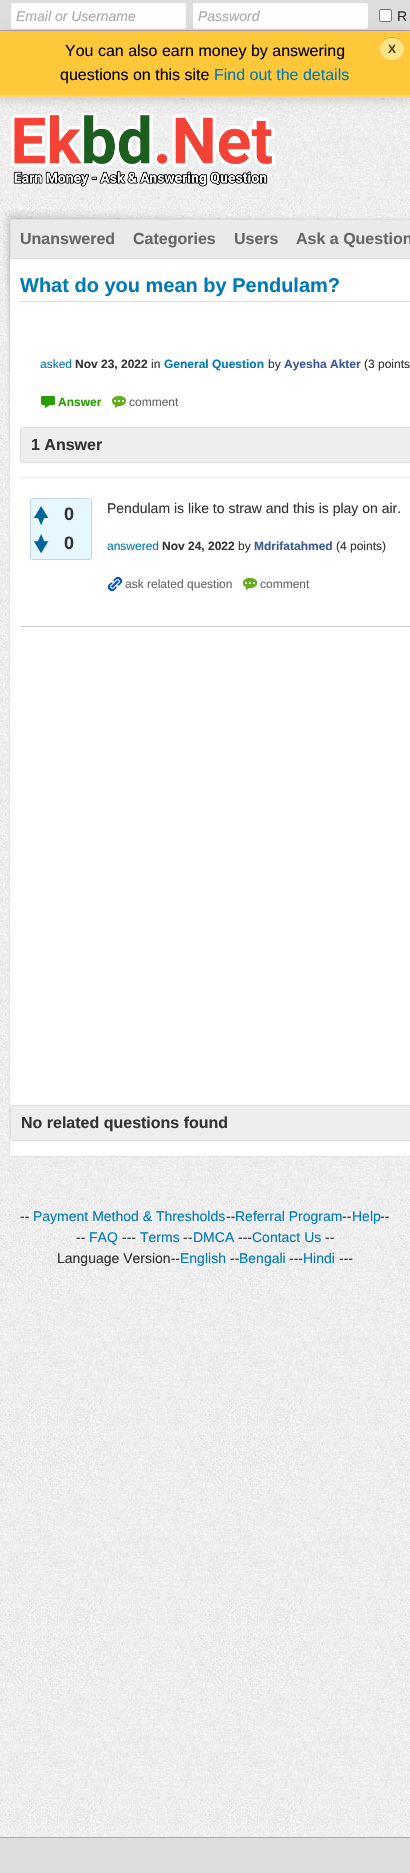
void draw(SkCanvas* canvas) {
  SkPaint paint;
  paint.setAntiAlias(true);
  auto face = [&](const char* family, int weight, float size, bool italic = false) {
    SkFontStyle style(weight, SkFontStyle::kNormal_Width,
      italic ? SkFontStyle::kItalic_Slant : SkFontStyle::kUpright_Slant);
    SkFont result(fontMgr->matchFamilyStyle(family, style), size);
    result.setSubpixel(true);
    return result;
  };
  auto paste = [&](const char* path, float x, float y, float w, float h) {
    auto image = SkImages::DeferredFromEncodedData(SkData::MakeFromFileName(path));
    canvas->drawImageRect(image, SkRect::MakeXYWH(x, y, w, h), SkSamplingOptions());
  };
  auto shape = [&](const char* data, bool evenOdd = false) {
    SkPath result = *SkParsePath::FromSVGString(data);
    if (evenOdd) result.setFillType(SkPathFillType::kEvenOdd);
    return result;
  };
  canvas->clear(0xffffffff);
  paste("img/1.png", 0, 98, 410, 1739);
  paint.setColor(0xffdddddd);
  canvas->drawRect(SkRect::MakeXYWH(0, 0, 410, 30), paint);
  paint.setColor(0xffaaaaaa);
  canvas->drawRect(SkRect::MakeXYWH(0, 30, 410, 1), paint);
  paint.setColor(0xffffffff);
  canvas->drawRoundRect(SkRect::MakeXYWH(10.5f, 2.5f, 176, 27), 2.5f, 2.5f, paint);
  paint.setStroke(true);
  paint.setStrokeWidth(1);
  paint.setColor(0xffdddddd);
  canvas->drawRoundRect(SkRect::MakeXYWH(10.5f, 2.5f, 176, 27), 2.5f, 2.5f, paint);
  paint.setStroke(false);
  paint.setColor(0xffffffff);
  canvas->drawRoundRect(SkRect::MakeXYWH(192.5f, 2.5f, 176, 27), 2.5f, 2.5f, paint);
  paint.setStroke(true);
  paint.setColor(0xffdddddd);
  canvas->drawRoundRect(SkRect::MakeXYWH(192.5f, 2.5f, 176, 27), 2.5f, 2.5f, paint);
  paint.setStroke(false);
  paint.setColor(0xffffffff);
  canvas->drawRoundRect(SkRect::MakeXYWH(379.5f, 9.5f, 12, 12), 1.5f, 1.5f, paint);
  paint.setStroke(true);
  paint.setColor(0xff767676);
  canvas->drawRoundRect(SkRect::MakeXYWH(379.5f, 9.5f, 12, 12), 1.5f, 1.5f, paint);
  paste("img/2.png", 11, 113, 264, 74);
  paint.setStroke(false);
  paint.setColor(0x26000000);
  paint.setMaskFilter(SkMaskFilter::MakeBlur(kNormal_SkBlurStyle, 5));
  canvas->drawRect(SkRect::MakeXYWH(0, 33, 410, 67), paint);
  paint.setMaskFilter(nullptr);
  paint.setColor(0xffffc73a);
  canvas->drawRect(SkRect::MakeXYWH(0, 31, 410, 64), paint);
  paint.setColor(0xffffd77a);
  canvas->drawRect(SkRect::MakeXYWH(0, 95, 410, 3), paint);
  paint.setColor(0xffd9a931);
  canvas->drawPath(shape("M391 37C385 37 379.5 42.5 380 48.5C380.5 34.5 403.5 34.5 404 48.5C404.5 42.5 399 37 393 37Z"), paint);
  paint.setColor(0xffffe484);
  canvas->drawRoundRect(SkRect::MakeXYWH(380, 38, 24, 22), 11, 11, paint);
  paste("img/3.png", 3, 210, 335, 239);
  paint.setColor(0x1a000000);
  paint.setMaskFilter(SkMaskFilter::MakeBlur(kNormal_SkBlurStyle, 1));
  canvas->drawRect(SkRect::MakeXYWH(10, 219, 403, 937), paint);
  paint.setMaskFilter(nullptr);
  paint.setColor(0xffffffff);
  canvas->drawRect(SkRect::MakeXYWH(10, 259, 400, 897), paint);
  paint.setColor(0xffeaeaea);
  canvas->drawRect(SkRect::MakeXYWH(10.5f, 219.5f, 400, 39), paint);
  paint.setStroke(true);
  paint.setColor(0xffdddddd);
  canvas->drawRect(SkRect::MakeXYWH(10.5f, 219.5f, 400, 39), paint);
  paint.setStroke(false);
  canvas->drawRect(SkRect::MakeXYWH(20, 301, 390, 1), paint);
  paste("img/4.png", 40, 396, 15, 12);
  paste("img/5.png", 111, 396, 15, 12);
  paint.setColor(0xffeeeeee);
  canvas->drawRoundRect(SkRect::MakeXYWH(20.5f, 427.5f, 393, 35), 2.5f, 2.5f, paint);
  paint.setStroke(true);
  paint.setColor(0xffdddddd);
  canvas->drawRoundRect(SkRect::MakeXYWH(20.5f, 427.5f, 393, 35), 2.5f, 2.5f, paint);
  paint.setStroke(false);
  paint.setColor(0xffeeeeee);
  canvas->drawRect(SkRect::MakeXYWH(20, 477, 390, 1), paint);
  paint.setColor(0xffcccccc);
  canvas->drawRect(SkRect::MakeXYWH(20, 626, 390, 1), paint);
  paint.setColor(0xffe7f7ff);
  canvas->drawRoundRect(SkRect::MakeXYWH(30.5f, 498.5f, 61, 61), 2.5f, 2.5f, paint);
  paint.setStroke(true);
  paint.setColor(0xffc5d6df);
  canvas->drawRoundRect(SkRect::MakeXYWH(30.5f, 498.5f, 61, 61), 2.5f, 2.5f, paint);
  paste("img/6.png", 34, 506, 15, 19);
  paste("img/7.png", 33, 534, 16, 19);
  paste("img/8.png", 107, 577, 15, 15);
  paste("img/5.png", 242, 578, 15, 12);
  paint.setStroke(false);
  paint.setColor(0xffeeeeee);
  canvas->drawRoundRect(SkRect::MakeXYWH(10.5f, 1105.5f, 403, 35), 2.5f, 2.5f, paint);
  paint.setStroke(true);
  paint.setColor(0xffdddddd);
  canvas->drawRoundRect(SkRect::MakeXYWH(10.5f, 1105.5f, 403, 35), 2.5f, 2.5f, paint);
  paint.setStroke(false);
  canvas->drawRect(SkRect::MakeXYWH(0, 1838, 410, 35), paint);
  paint.setColor(0xffaaaaaa);
  canvas->drawRect(SkRect::MakeXYWH(0, 1837, 410, 1), paint);
  auto f0 = face("Liberation Sans", 400, 14, true);
  canvas->drawString("Email or Username", 16, 21, f0, paint);
  canvas->drawString("Password", 198, 21, f0, paint);
  auto f1 = face("Liberation Sans", 400, 14);
  paint.setColor(0xff333333);
  canvas->drawString("R", 397, 21, f1, paint);
  auto f2 = face("Liberation Sans", 400, 16);
  paint.setColor(0xff000000);
  canvas->drawString("You can also earn money by answering", 65, 56, f2, paint);
  auto f3 = face("Liberation Sans", 700, 12);
  paint.setColor(0xff4d4428);
  canvas->drawString("X", 388, 53, f3, paint);
  paint.setColor(0xff000000);
  canvas->drawString("questions on this site", 60, 80, f2, paint);
  paint.setColor(0xff0179b5);
  canvas->drawString("Find out the details", 214, 80, f2, paint);
  auto f4 = face("Liberation Sans", 700, 16);
  paint.setColor(0xff666666);
  {
    const struct { const char* s; float x, y; } items[] = {
      {"Unanswered", 20, 244},
      {"Categories", 133, 244},
      {"Users", 234, 244},
      {"Ask a Question", 296, 244},
    };
    for (auto [s, x, y] : items) {
      canvas->drawString(s, x, y, f4, paint);
    }
  }
  auto f5 = face("Liberation Sans", 700, 20);
  paint.setColor(0xff0179b5);
  canvas->drawString("What do you mean by Pendulam?", 20, 292, f5, paint);
  auto f6 = face("Liberation Sans", 400, 12);
  canvas->drawString("asked", 40, 368, f6, paint);
  paint.setColor(0xff333333);
  canvas->drawString("Nov 23, 2022", 75, 368, f3, paint);
  canvas->drawString("in", 151, 368, f6, paint);
  paint.setColor(0xff0179b5);
  canvas->drawString("General Question", 164, 368, f3, paint);
  paint.setColor(0xff333333);
  canvas->drawString("by", 268, 368, f6, paint);
  paint.setColor(0xff3b5998);
  canvas->drawString("Ayesha Akter", 284, 368, f3, paint);
  paint.setColor(0xff333333);
  canvas->drawString("(3 points", 364, 368, f6, paint);
  paint.setColor(0xff289e00);
  canvas->drawString("Answer", 58, 406, f3, paint);
  paint.setColor(0xff666666);
  canvas->drawString("comment", 129, 406, f6, paint);
  paint.setColor(0xff333333);
  canvas->drawString("1 Answer", 31, 450, f4, paint);
  auto f7 = face("Liberation Sans", 700, 18);
  canvas->drawString("0", 64, 520, f7, paint);
  canvas->drawString("0", 64, 549, f7, paint);
  canvas->drawString("Pendulam is like to straw and this is play on air.", 107, 513, f1, paint);
  paint.setColor(0xff0179b5);
  canvas->drawString("answered", 107, 550, f6, paint);
  paint.setColor(0xff333333);
  canvas->drawString("Nov 24, 2022", 162, 550, f3, paint);
  canvas->drawString("by", 238, 550, f6, paint);
  paint.setColor(0xff3b5998);
  canvas->drawString("Mdrifatahmed", 254, 550, f3, paint);
  paint.setColor(0xff333333);
  canvas->drawString("(4 points)", 336, 550, f6, paint);
  paint.setColor(0xff666666);
  canvas->drawString("ask related question", 125, 588, f6, paint);
  canvas->drawString("comment", 260, 588, f6, paint);
  paint.setColor(0xff333333);
  canvas->drawString("No related questions found", 21, 1128, f4, paint);
  canvas->drawString("--", 20, 1221, f1, paint);
  paint.setColor(0xff0179b5);
  canvas->drawString("Payment Method & Thresholds", 33, 1221, f1, paint);
  paint.setColor(0xff333333);
  canvas->drawString("--", 226, 1221, f1, paint);
  paint.setColor(0xff0179b5);
  canvas->drawString("Referral Program", 235, 1221, f1, paint);
  paint.setColor(0xff333333);
  canvas->drawString("--", 342, 1221, f1, paint);
  paint.setColor(0xff0179b5);
  canvas->drawString("Help", 352, 1221, f1, paint);
  paint.setColor(0xff333333);
  canvas->drawString("--", 380, 1221, f1, paint);
  canvas->drawString("--", 76, 1242, f1, paint);
  paint.setColor(0xff0179b5);
  canvas->drawString("FAQ", 89, 1242, f1, paint);
  paint.setColor(0xff333333);
  canvas->drawString("---", 122, 1242, f1, paint);
  paint.setColor(0xff0179b5);
  canvas->drawString("Terms", 140, 1242, f1, paint);
  paint.setColor(0xff333333);
  canvas->drawString("--", 183, 1242, f1, paint);
  paint.setColor(0xff0179b5);
  canvas->drawString("DMCA", 193, 1242, f1, paint);
  paint.setColor(0xff333333);
  canvas->drawString("---", 238, 1242, f1, paint);
  paint.setColor(0xff0179b5);
  canvas->drawString("Contact Us", 252, 1242, f1, paint);
  paint.setColor(0xff333333);
  canvas->drawString("--", 325, 1242, f1, paint);
  canvas->drawString("Language Version--", 57, 1263, f1, paint);
  paint.setColor(0xff0179b5);
  canvas->drawString("English", 180, 1263, f1, paint);
  paint.setColor(0xff333333);
  canvas->drawString("--", 230, 1263, f1, paint);
  paint.setColor(0xff0179b5);
  canvas->drawString("Bengali", 239, 1263, f1, paint);
  paint.setColor(0xff333333);
  canvas->drawString("---", 289, 1263, f1, paint);
  paint.setColor(0xff0179b5);
  canvas->drawString("Hindi", 303, 1263, f1, paint);
  paint.setColor(0xff333333);
  canvas->drawString("---", 339, 1263, f1, paint);
}
